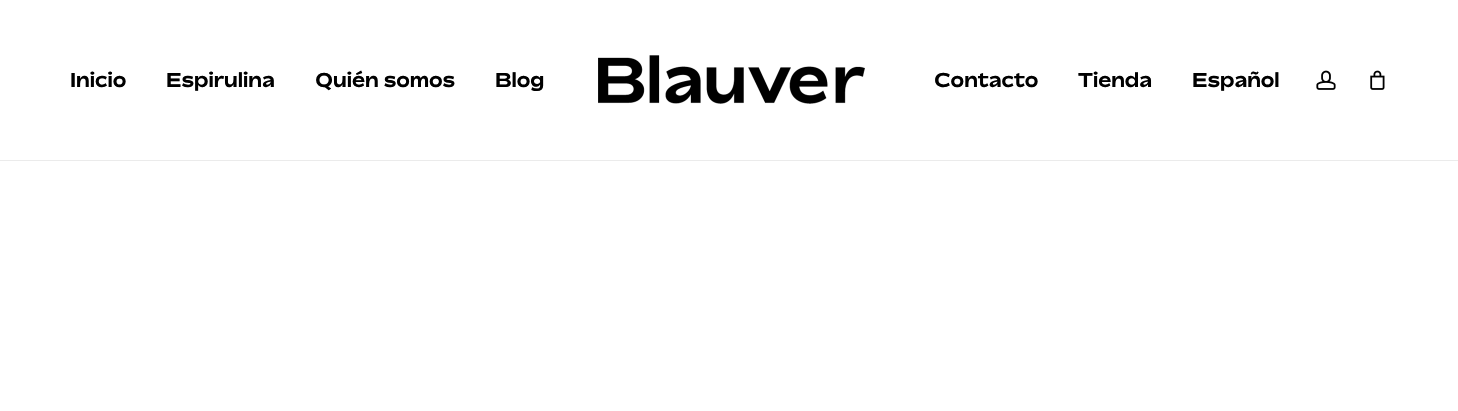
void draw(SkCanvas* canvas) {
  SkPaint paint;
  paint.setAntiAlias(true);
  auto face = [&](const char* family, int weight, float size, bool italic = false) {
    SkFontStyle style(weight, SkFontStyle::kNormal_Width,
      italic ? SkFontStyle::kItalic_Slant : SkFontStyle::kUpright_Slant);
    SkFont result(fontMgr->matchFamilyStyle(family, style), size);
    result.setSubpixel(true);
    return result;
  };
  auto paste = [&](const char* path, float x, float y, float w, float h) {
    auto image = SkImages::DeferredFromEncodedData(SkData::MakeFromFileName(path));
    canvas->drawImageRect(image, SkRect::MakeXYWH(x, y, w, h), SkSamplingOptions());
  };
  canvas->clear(0xffffffff);
  paint.setColor(0xffebebeb);
  canvas->drawRect(SkRect::MakeXYWH(0, 160, 1458, 1), paint);
  paste("img/1.png", 598, 55, 267, 49);
  paste("img/2.png", 1316, 70, 20, 20);
  paste("img/3.png", 1370, 70, 15, 20);
  auto f0 = face("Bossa", 700, 20);
  paint.setColor(0xff000000);
  {
    const struct { const char* s; float x, y; } items[] = {
      {"Inicio", 70, 87},
      {"Espirulina", 166, 87},
      {"Quién somos", 315, 87},
      {"Blog", 495, 87},
      {"Contacto", 934, 87},
      {"Tienda", 1078, 87},
      {"Español", 1192, 87},
    };
    for (auto [s, x, y] : items) {
      canvas->drawString(s, x, y, f0, paint);
    }
  }
}
